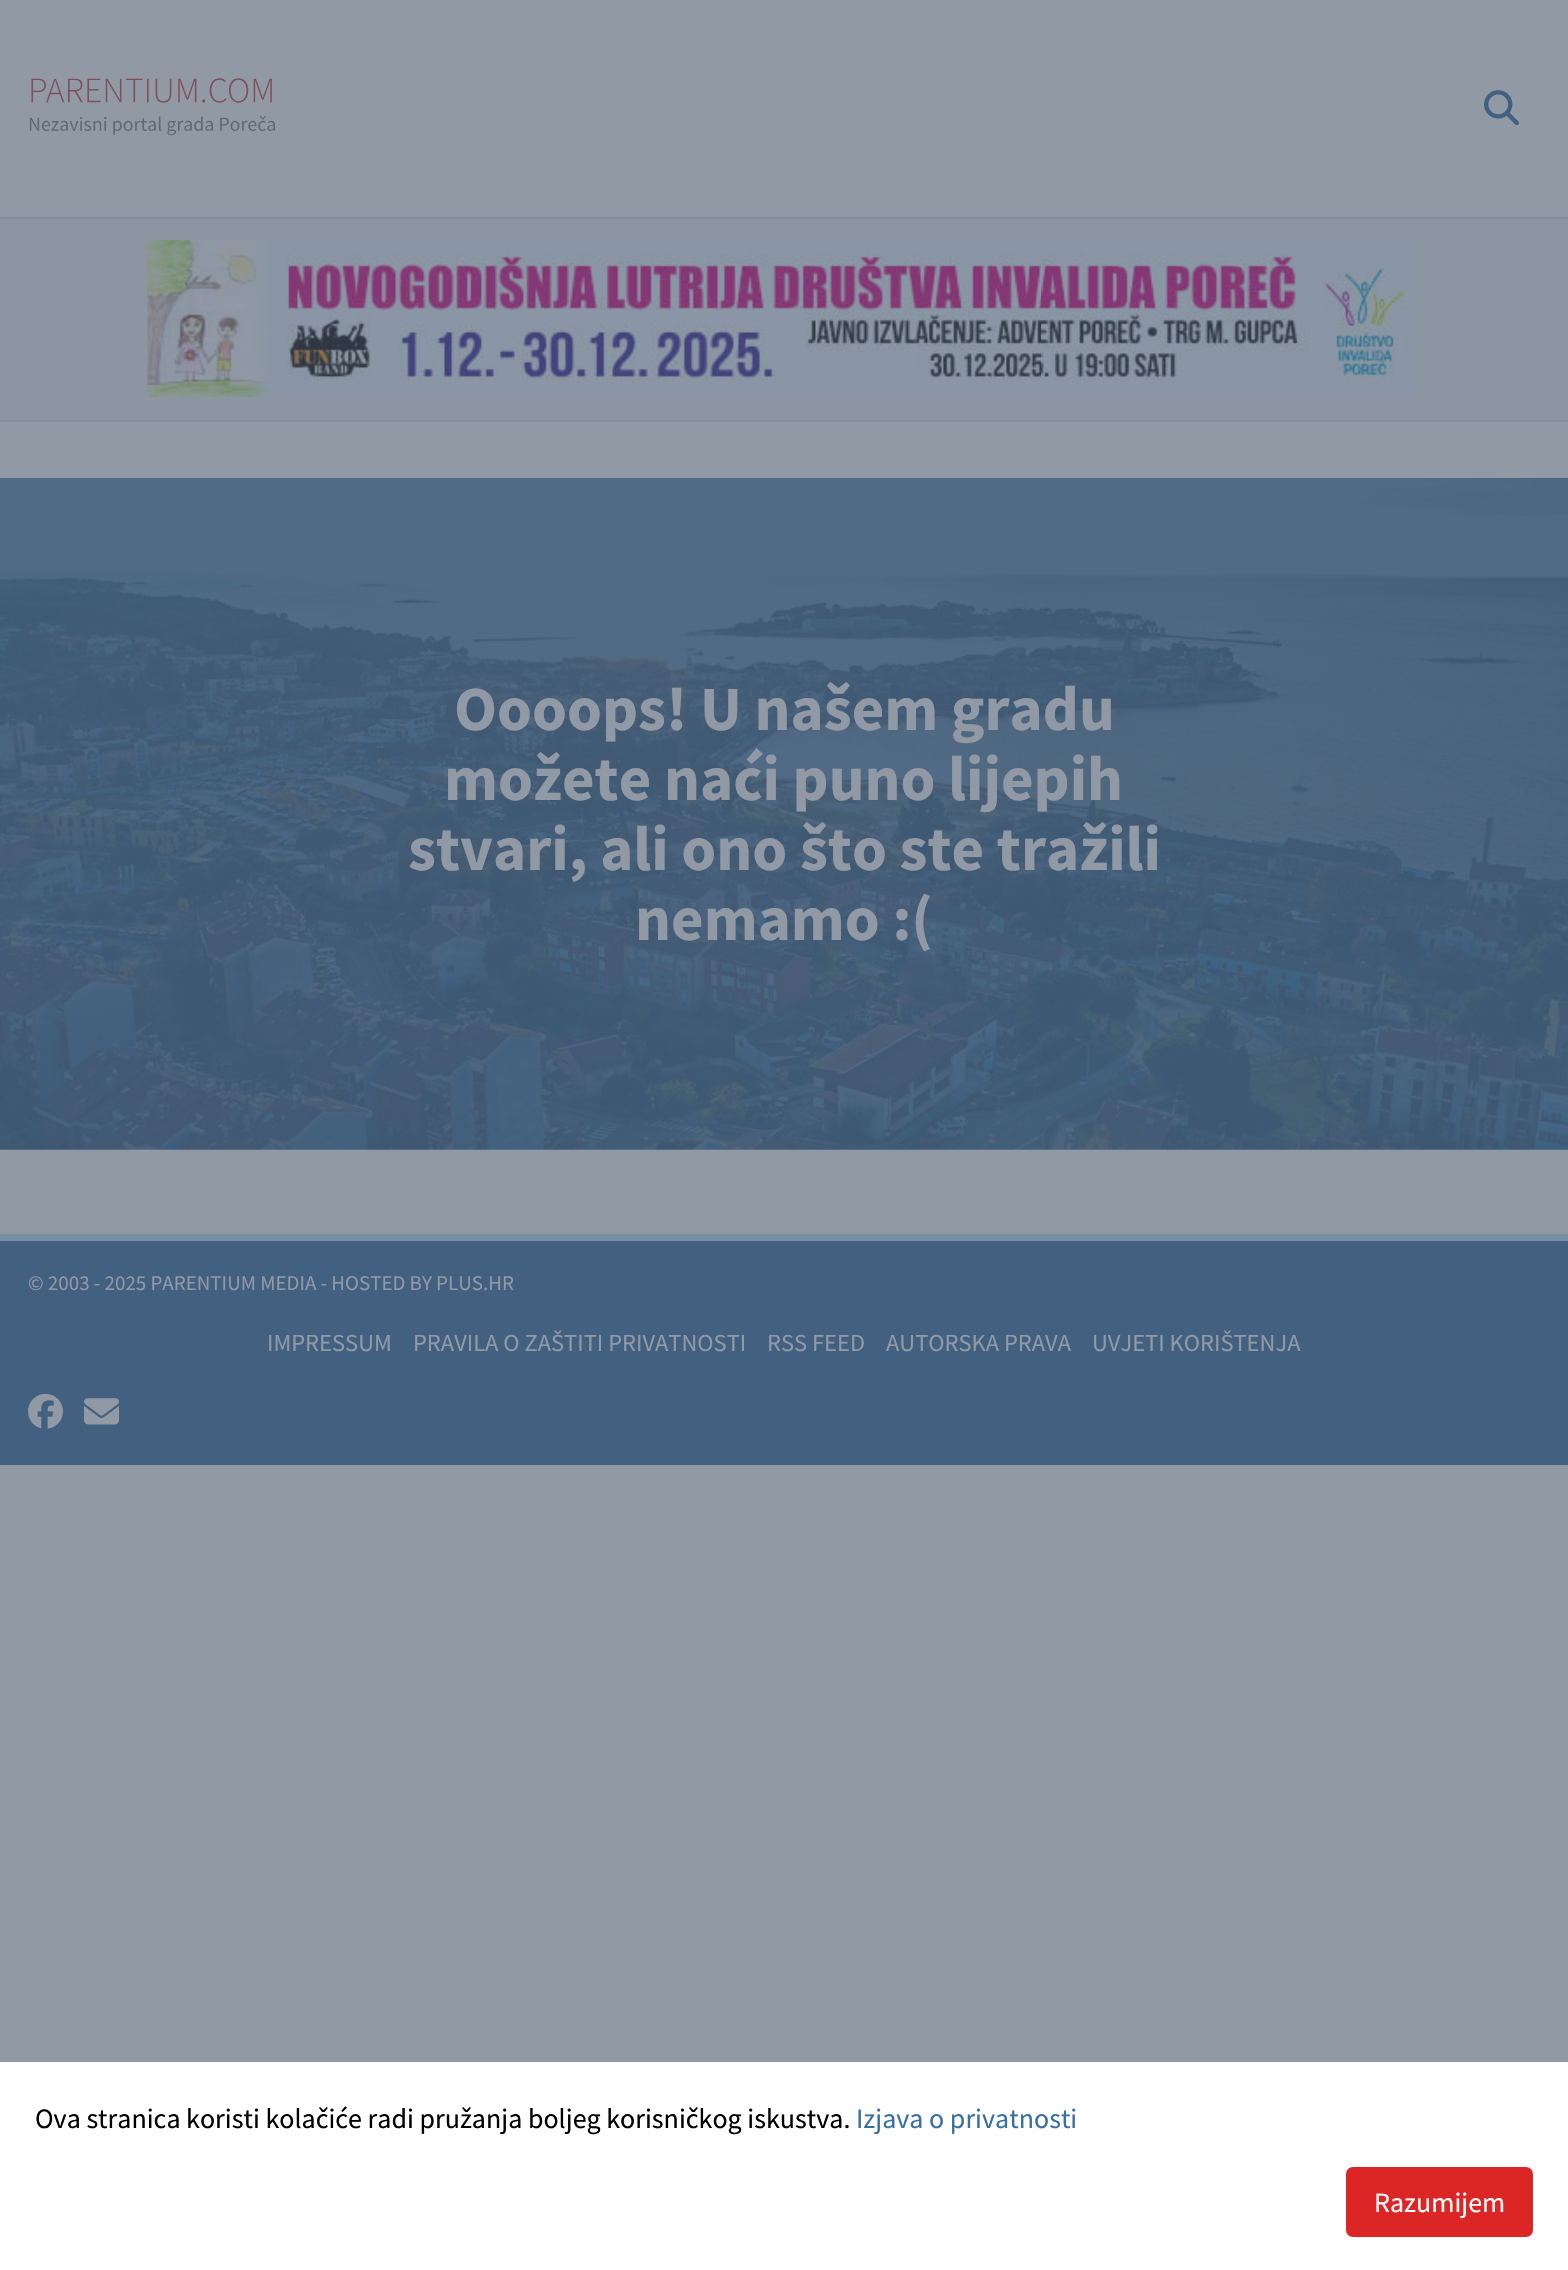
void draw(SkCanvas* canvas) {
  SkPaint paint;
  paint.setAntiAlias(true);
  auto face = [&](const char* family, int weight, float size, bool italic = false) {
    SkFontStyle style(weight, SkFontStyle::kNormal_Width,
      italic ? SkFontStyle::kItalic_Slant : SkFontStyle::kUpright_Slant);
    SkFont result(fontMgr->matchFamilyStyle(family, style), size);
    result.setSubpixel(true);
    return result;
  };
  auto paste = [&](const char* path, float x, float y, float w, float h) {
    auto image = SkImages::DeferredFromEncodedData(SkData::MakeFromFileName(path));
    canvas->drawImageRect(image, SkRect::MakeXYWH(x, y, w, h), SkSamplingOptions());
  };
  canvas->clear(0xff9199a5);
  paste("img/1.png", 29, 78, 246, 58);
  paste("img/2.png", 1484, 90, 35, 36);
  {
    const struct { float x, y, w, h; SkColor color; } items[] = {
      {0, 219, 1568, 201, 0xff8c95a1},
      {0, 217, 1568, 2, 0xff868e9b},
      {0, 420, 1568, 2, 0xff868e9b},
    };
    for (auto [x, y, w, h, color] : items) {
      paint.setColor(color);
      canvas->drawRect(SkRect::MakeXYWH(x, y, w, h), paint);
    }
  }
  paste("img/3.png", 147, 240, 1274, 157);
  paste("img/4.png", 0, 477, 1568, 673);
  paint.setColor(0xff42607f);
  canvas->drawRect(SkRect::MakeXYWH(0, 1241, 1568, 224), paint);
  paint.setColor(0xff758fa4);
  canvas->drawRect(SkRect::MakeXYWH(0, 1234, 1568, 7), paint);
  paste("img/5.png", 28, 1393, 35, 36);
  paste("img/6.png", 84, 1398, 35, 27);
  paint.setColor(0xffffffff);
  canvas->drawRect(SkRect::MakeXYWH(0, 2062, 1568, 208), paint);
  paint.setColor(0xffdc2626);
  canvas->drawRoundRect(SkRect::MakeXYWH(1346, 2167, 187, 70), 7, 7, paint);
  auto f0 = face("Source Sans Pro", 700, 63);
  paint.setColor(0xff9199a5);
  {
    const struct { const char* s; float x, y; } items[] = {
      {"Oooops! U našem gradu", 454, 730},
      {"možete naći puno lijepih", 444, 800},
      {"stvari, ali ono što ste tražili", 408, 870},
      {"nemamo :(", 635, 940},
    };
    for (auto [s, x, y] : items) {
      canvas->drawString(s, x, y, f0, paint);
    }
  }
  auto f1 = face("Source Sans Pro", 400, 21);
  canvas->drawString("© 2003 - 2025 PARENTIUM MEDIA - HOSTED BY PLUS.HR", 28, 1290, f1, paint);
  auto f2 = face("Source Sans Pro", 400, 24.5f);
  {
    const struct { const char* s; float x, y; } items[] = {
      {"IMPRESSUM", 267, 1351},
      {"PRAVILA O ZAŠTITI PRIVATNOSTI", 413, 1351},
      {"RSS FEED", 767, 1351},
      {"AUTORSKA PRAVA", 886, 1351},
      {"UVJETI KORIŠTENJA", 1092, 1351},
    };
    for (auto [s, x, y] : items) {
      canvas->drawString(s, x, y, f2, paint);
    }
  }
  auto f3 = face("Source Sans Pro", 400, 28);
  paint.setColor(0xff000000);
  canvas->drawString("Ova stranica koristi kolačiće radi pružanja boljeg korisničkog iskustva.", 35, 2128, f3, paint);
  paint.setColor(0xff3a70a0);
  canvas->drawString("Izjava o privatnosti", 856, 2128, f3, paint);
  paint.setColor(0xffffffff);
  canvas->drawString("Razumijem", 1374, 2212, f3, paint);
}
